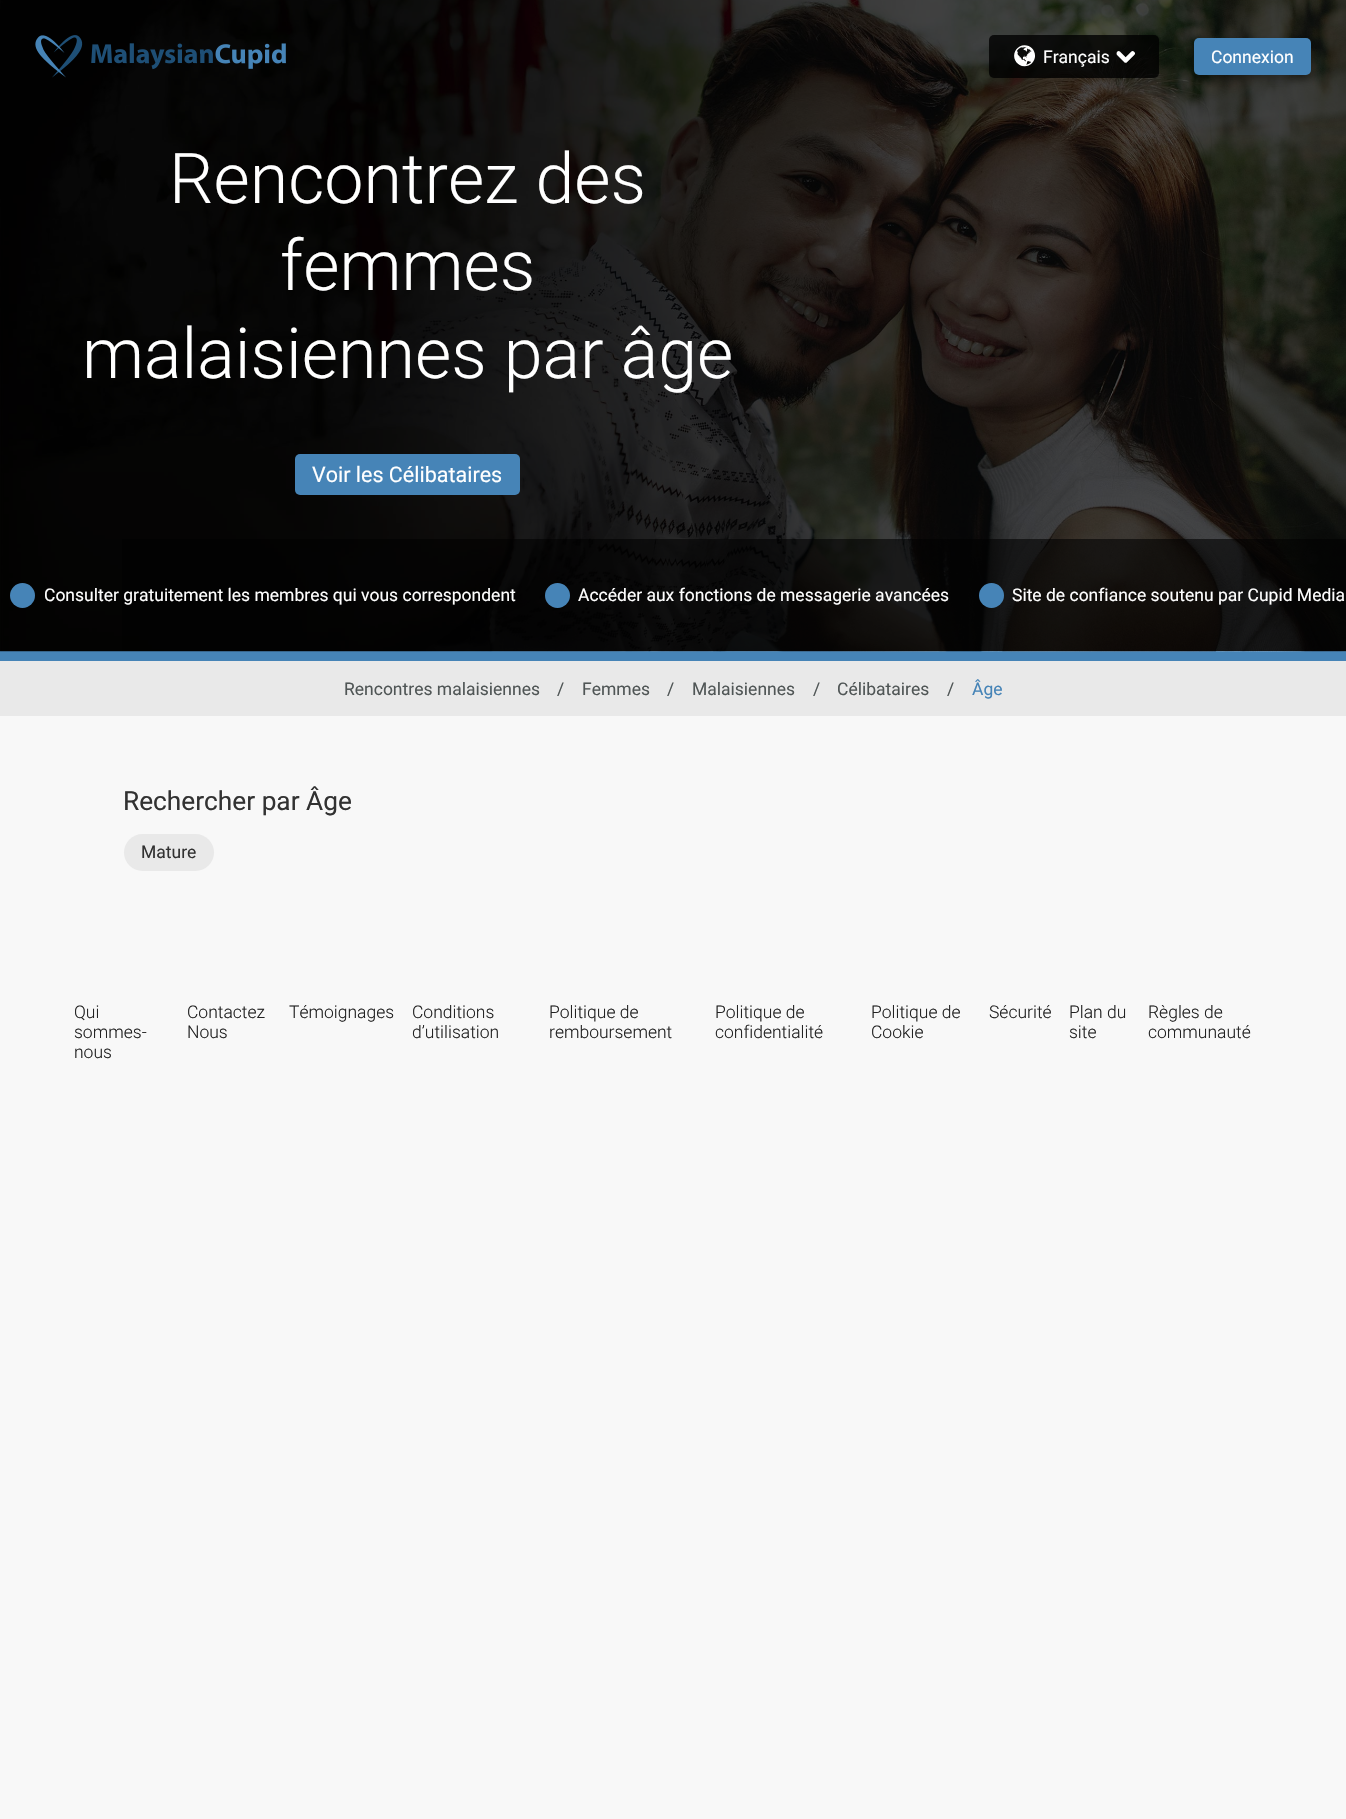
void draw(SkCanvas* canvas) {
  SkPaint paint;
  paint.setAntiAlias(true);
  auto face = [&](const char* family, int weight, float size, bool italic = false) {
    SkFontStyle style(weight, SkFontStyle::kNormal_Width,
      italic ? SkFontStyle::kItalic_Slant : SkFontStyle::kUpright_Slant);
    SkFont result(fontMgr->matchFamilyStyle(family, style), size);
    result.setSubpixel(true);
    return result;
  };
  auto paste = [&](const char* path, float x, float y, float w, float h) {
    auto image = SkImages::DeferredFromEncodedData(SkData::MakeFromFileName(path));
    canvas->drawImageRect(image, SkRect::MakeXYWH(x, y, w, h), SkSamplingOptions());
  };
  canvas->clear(0xfff8f8f8);
  paint.setColor(0xff4684b7);
  canvas->drawRect(SkRect::MakeXYWH(0, 651, 1346, 10), paint);
  paste("img/5.png", 0, 0, 1346, 652);
  paste("img/1.png", 35, 35, 48, 43);
  paste("img/2.png", 91, 43, 195, 27);
  paint.setColor(0xcc000000);
  canvas->drawRoundRect(SkRect::MakeXYWH(989, 35, 170, 43), 5, 5, paint);
  paste("img/3.png", 1014, 45, 21, 22);
  paste("img/4.png", 1116, 51, 19, 12);
  paint.setColor(0x66000000);
  paint.setMaskFilter(SkMaskFilter::MakeBlur(kNormal_SkBlurStyle, 4));
  canvas->drawRoundRect(SkRect::MakeXYWH(1194, 41, 117, 38), 5, 5, paint);
  paint.setMaskFilter(nullptr);
  paint.setColor(0xff4684b7);
  canvas->drawRoundRect(SkRect::MakeXYWH(1194, 38, 117, 37), 5, 5, paint);
  canvas->drawRoundRect(SkRect::MakeXYWH(295, 454, 225, 41), 5, 5, paint);
  paint.setColor(0x99000000);
  canvas->drawRect(SkRect::MakeXYWH(122, 539, 1224, 112), paint);
  paint.setColor(0xff4684b7);
  canvas->drawCircle(22.5f, 595.5f, 12.5f, paint);
  canvas->drawCircle(557.5f, 595.5f, 12.5f, paint);
  canvas->drawCircle(991.5f, 595.5f, 12.5f, paint);
  paint.setColor(0xffe9e9e9);
  canvas->drawRect(SkRect::MakeXYWH(0, 661, 1346, 55), paint);
  canvas->drawRoundRect(SkRect::MakeXYWH(124, 834, 90, 37), 18.5f, 18.5f, paint);
  auto f0 = face("Roboto", 400, 17.5f);
  paint.setColor(0xffffffff);
  canvas->drawString("Français", 1043, 63, f0, paint);
  canvas->drawString("Connexion", 1211, 63, f0, paint);
  auto f1 = face("Roboto", 300, 70);
  {
    const struct { const char* s; float x, y; } items[] = {
      {"Rencontrez des", 169, 203},
      {"femmes", 280, 290},
      {"malaisiennes par âge", 82, 378},
    };
    for (auto [s, x, y] : items) {
      canvas->drawString(s, x, y, f1, paint);
    }
  }
  auto f2 = face("Roboto", 400, 21.5f);
  canvas->drawString("Voir les Célibataires", 312, 482, f2, paint);
  {
    const struct { const char* s; float x, y; } items[] = {
      {"Consulter gratuitement les membres qui vous correspondent", 44, 601},
      {"Accéder aux fonctions de messagerie avancées", 578, 601},
      {"Site de confiance soutenu par Cupid Media", 1012, 601},
    };
    for (auto [s, x, y] : items) {
      canvas->drawString(s, x, y, f0, paint);
    }
  }
  paint.setColor(0xff505656);
  {
    const struct { const char* s; float x, y; } items[] = {
      {"Rencontres malaisiennes", 344, 695},
      {"/", 557, 695},
      {"Femmes", 582, 695},
      {"/", 667, 695},
      {"Malaisiennes", 692, 695},
      {"/", 813, 695},
      {"Célibataires", 837, 695},
      {"/", 947, 695},
    };
    for (auto [s, x, y] : items) {
      canvas->drawString(s, x, y, f0, paint);
    }
  }
  paint.setColor(0xff4684b7);
  canvas->drawString("Âge", 972, 695, f0, paint);
  auto f3 = face("Roboto", 400, 26.25f);
  paint.setColor(0xff323232);
  canvas->drawString("Rechercher par Âge", 123, 810, f3, paint);
  canvas->drawString("Mature", 141, 858, f0, paint);
  auto f4 = face("Roboto", 300, 17.5f);
  paint.setColor(0xff222222);
  {
    const struct { const char* s; float x, y; } items[] = {
      {"Qui", 74, 1018},
      {"sommes-", 74, 1038},
      {"nous", 74, 1058},
      {"Contactez", 187, 1018},
      {"Nous", 187, 1038},
      {"Témoignages", 289, 1018},
      {"Conditions", 412, 1018},
      {"d’utilisation", 412, 1038},
      {"Politique de", 549, 1018},
      {"remboursement", 549, 1038},
      {"Politique de", 715, 1018},
      {"confidentialité", 715, 1038},
      {"Politique de", 871, 1018},
      {"Cookie", 871, 1038},
      {"Sécurité", 989, 1018},
      {"Plan du", 1069, 1018},
      {"site", 1069, 1038},
      {"Règles de", 1148, 1018},
      {"communauté", 1148, 1038},
    };
    for (auto [s, x, y] : items) {
      canvas->drawString(s, x, y, f4, paint);
    }
  }
}
